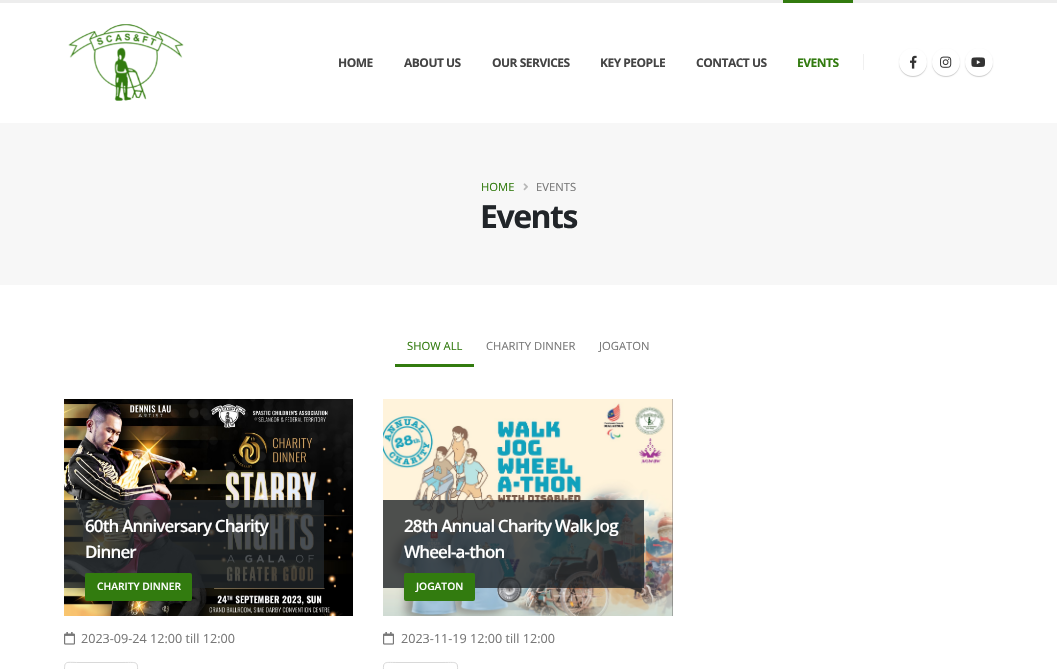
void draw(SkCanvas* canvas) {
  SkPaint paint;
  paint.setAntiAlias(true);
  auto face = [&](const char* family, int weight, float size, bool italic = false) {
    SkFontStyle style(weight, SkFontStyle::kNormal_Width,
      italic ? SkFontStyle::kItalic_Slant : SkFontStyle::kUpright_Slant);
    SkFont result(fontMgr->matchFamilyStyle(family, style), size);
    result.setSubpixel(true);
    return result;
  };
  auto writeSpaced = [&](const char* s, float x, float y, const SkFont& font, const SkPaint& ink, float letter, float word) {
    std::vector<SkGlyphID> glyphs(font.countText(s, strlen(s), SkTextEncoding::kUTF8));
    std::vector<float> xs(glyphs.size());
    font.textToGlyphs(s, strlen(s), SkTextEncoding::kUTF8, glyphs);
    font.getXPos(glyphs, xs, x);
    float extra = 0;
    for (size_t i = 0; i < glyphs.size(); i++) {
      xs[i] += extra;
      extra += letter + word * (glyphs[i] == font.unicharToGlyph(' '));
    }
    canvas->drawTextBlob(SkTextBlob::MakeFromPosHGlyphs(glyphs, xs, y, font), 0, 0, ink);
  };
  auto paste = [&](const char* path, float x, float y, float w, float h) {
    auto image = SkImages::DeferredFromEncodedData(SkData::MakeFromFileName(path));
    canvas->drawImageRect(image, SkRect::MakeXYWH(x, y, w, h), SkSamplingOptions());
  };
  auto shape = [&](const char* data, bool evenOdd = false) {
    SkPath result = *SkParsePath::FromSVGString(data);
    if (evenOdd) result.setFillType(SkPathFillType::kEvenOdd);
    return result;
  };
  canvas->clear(0xffffffff);
  paint.setColor(0xffededed);
  canvas->drawRect(SkRect::MakeXYWH(0, 0, 1057, 3), paint);
  paste("img/1.png", 68, 24, 116, 77);
  paint.setColor(0xff327b0f);
  canvas->drawRect(SkRect::MakeXYWH(783, 0, 70, 3), paint);
  paint.setColor(0xfff0f0f0);
  canvas->drawRect(SkRect::MakeXYWH(863, 54, 1, 16), paint);
  paint.setColor(0x33000000);
  paint.setMaskFilter(SkMaskFilter::MakeBlur(kNormal_SkBlurStyle, 0.5f));
  canvas->drawRoundRect(SkRect::MakeXYWH(899, 49, 28, 28), 14, 14, paint);
  paint.setMaskFilter(nullptr);
  paint.setColor(0xffffffff);
  canvas->drawCircle(913, 62, 14, paint);
  paste("img/2.png", 910, 55, 7, 14);
  paint.setColor(0x33000000);
  paint.setMaskFilter(SkMaskFilter::MakeBlur(kNormal_SkBlurStyle, 0.5f));
  canvas->drawRoundRect(SkRect::MakeXYWH(932, 49, 28, 28), 14, 14, paint);
  paint.setMaskFilter(nullptr);
  paint.setColor(0xffffffff);
  canvas->drawCircle(946, 62, 14, paint);
  paste("img/3.png", 940, 56, 12, 12);
  paint.setColor(0x33000000);
  paint.setMaskFilter(SkMaskFilter::MakeBlur(kNormal_SkBlurStyle, 0.5f));
  canvas->drawRoundRect(SkRect::MakeXYWH(965, 49, 28, 28), 14, 14, paint);
  paint.setMaskFilter(nullptr);
  paint.setColor(0xffffffff);
  canvas->drawCircle(979, 62, 14, paint);
  paste("img/4.png", 971, 57, 14, 10);
  paint.setColor(0xfff7f7f7);
  canvas->drawRect(SkRect::MakeXYWH(0, 123, 1057, 162), paint);
  paste("img/5.png", 523, 183, 5, 8);
  paint.setColor(0xff327b0f);
  canvas->drawRect(SkRect::MakeXYWH(395, 364, 79, 3), paint);
  paste("img/6.png", 64, 399, 289, 217);
  paint.setColor(0xcc212529);
  canvas->drawRect(SkRect::MakeXYWH(64, 500, 260, 88), paint);
  paint.setColor(0xff327b0f);
  canvas->drawRoundRect(SkRect::MakeXYWH(85, 573, 107, 28), 2, 2, paint);
  paste("img/7.png", 64, 632, 11, 13);
  paint.setStroke(true);
  paint.setStrokeWidth(1);
  paint.setColor(0xffd9d9d9);
  canvas->drawPath(shape("M65.5 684.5C63.5 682.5 64.5 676.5 64.5 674C64.5 660 64 662.5 79 662.5H123C139.5 662.5 137.5 660.5 137.5 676.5C137.5 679 138.5 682.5 136.5 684.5"), paint);
  paste("img/8.png", 383, 399, 290, 217);
  paint.setStroke(false);
  paint.setColor(0xcc212529);
  canvas->drawRect(SkRect::MakeXYWH(383, 500, 261, 88), paint);
  paint.setColor(0xff327b0f);
  canvas->drawRoundRect(SkRect::MakeXYWH(404, 573, 71, 28), 2, 2, paint);
  paste("img/7.png", 383, 632, 11, 13);
  paint.setStroke(true);
  paint.setColor(0xffd9d9d9);
  canvas->drawPath(shape("M384.5 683.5C382.5 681.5 383.5 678 383.5 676C383.5 660.5 381.5 662.5 398 662.5H443C459.5 662.5 457.5 660.5 457.5 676C457.5 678 458.5 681.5 456.5 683.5"), paint);
  auto f0 = face("Open Sans", 700, 12);
  paint.setStroke(false);
  paint.setColor(0xff444444);
  {
    const struct { const char* s; float x, y; } items[] = {
      {"HOME", 338, 67},
      {"ABOUT US", 404, 67},
      {"OUR SERVICES", 492, 67},
      {"KEY PEOPLE", 600, 67},
      {"CONTACT US", 696, 67},
    };
    for (auto [s, x, y] : items) {
      writeSpaced(s, x, y, f0, paint, -0.5f, 0);
    }
  }
  paint.setColor(0xff327b0f);
  writeSpaced("EVENTS", 797, 67, f0, paint, -0.5f, 0);
  auto f1 = face("Open Sans", 400, 11.25f);
  canvas->drawString("HOME", 481, 191, f1, paint);
  paint.setColor(0xff777777);
  canvas->drawString("EVENTS", 536, 191, f1, paint);
  auto f2 = face("Open Sans", 700, 32);
  paint.setColor(0xff212529);
  writeSpaced("Events", 480, 228, f2, paint, -1.5f, 0);
  paint.setColor(0xff327b0f);
  canvas->drawString("SHOW ALL", 407, 350, f1, paint);
  paint.setColor(0xff777777);
  canvas->drawString("CHARITY DINNER", 486, 350, f1, paint);
  canvas->drawString("JOGATON", 599, 350, f1, paint);
  auto f3 = face("Open Sans", 600, 17);
  paint.setColor(0xffffffff);
  writeSpaced("60th Anniversary Charity", 85, 532, f3, paint, -0.85f, 0);
  writeSpaced("Dinner", 85, 558, f3, paint, -0.85f, 0);
  auto f4 = face("Open Sans", 600, 10.25f);
  canvas->drawString("CHARITY DINNER", 97, 590, f4, paint);
  auto f5 = face("Open Sans", 400, 12.6f);
  paint.setColor(0xff777777);
  canvas->drawString("2023-09-24 12:00 till 12:00", 81, 643, f5, paint);
  paint.setColor(0xffffffff);
  writeSpaced("28th Annual Charity Walk Jog", 404, 532, f3, paint, -0.85f, 0);
  writeSpaced("Wheel-a-thon", 404, 558, f3, paint, -0.85f, 0);
  canvas->drawString("JOGATON", 416, 590, f4, paint);
  paint.setColor(0xff777777);
  canvas->drawString("2023-11-19 12:00 till 12:00", 401, 643, f5, paint);
}
